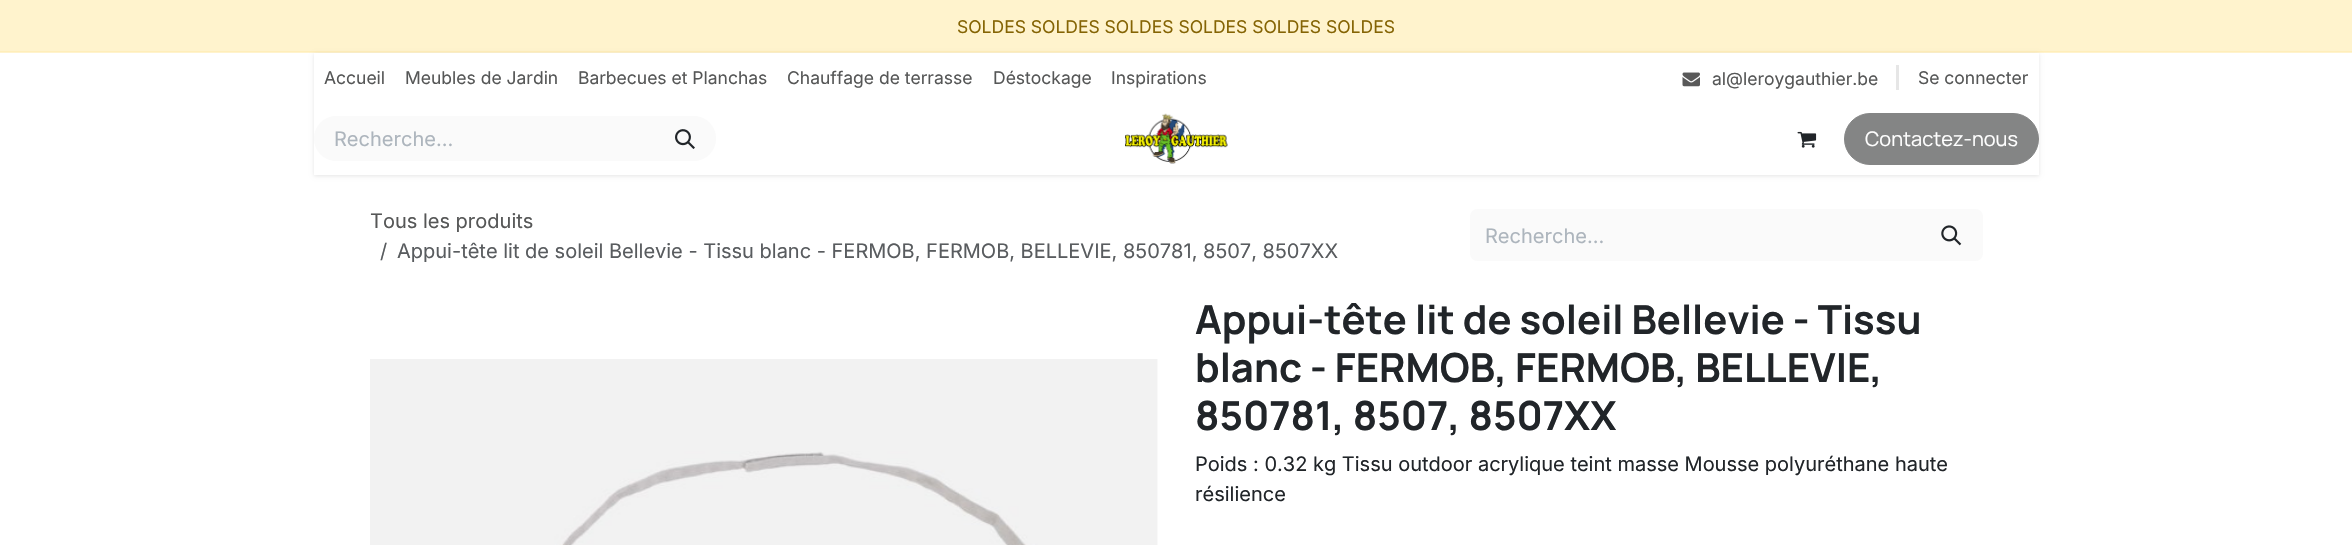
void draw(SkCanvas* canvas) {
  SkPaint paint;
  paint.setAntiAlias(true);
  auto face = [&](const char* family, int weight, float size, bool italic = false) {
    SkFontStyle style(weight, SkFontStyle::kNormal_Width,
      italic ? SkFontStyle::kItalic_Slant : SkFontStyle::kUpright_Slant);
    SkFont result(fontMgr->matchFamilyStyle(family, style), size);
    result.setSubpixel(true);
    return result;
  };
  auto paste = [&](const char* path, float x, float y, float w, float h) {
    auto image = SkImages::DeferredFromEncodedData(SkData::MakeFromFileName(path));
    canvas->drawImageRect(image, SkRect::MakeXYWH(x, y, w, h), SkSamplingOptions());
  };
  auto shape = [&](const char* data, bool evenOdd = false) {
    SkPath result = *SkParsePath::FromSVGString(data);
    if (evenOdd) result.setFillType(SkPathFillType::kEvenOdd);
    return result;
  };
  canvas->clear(0xffffffff);
  paint.setColor(0xfffff3cd);
  canvas->drawRect(SkRect::MakeXYWH(0, 0, 2352, 53), paint);
  paint.setColor(0xffffeeba);
  canvas->drawRect(SkRect::MakeXYWH(0, 51, 2352, 1), paint);
  paint.setColor(0x1a000000);
  paint.setMaskFilter(SkMaskFilter::MakeBlur(kNormal_SkBlurStyle, 2));
  canvas->drawRect(SkRect::MakeXYWH(314, 54, 1725, 122), paint);
  paint.setMaskFilter(nullptr);
  paint.setColor(0xffffffff);
  canvas->drawRect(SkRect::MakeXYWH(314, 53, 1725, 122), paint);
  paste("img/1.png", 1682, 72, 18, 15);
  paint.setColor(0xffe6e6e6);
  canvas->drawRect(SkRect::MakeXYWH(1896, 65, 3, 25), paint);
  paint.setColor(0xfffafafa);
  canvas->drawPath(shape("M336.5 116H655V161H336.5C324 161 314 151 314 138.5C314 126 324 116 336.5 116Z"), paint);
  canvas->drawPath(shape("M654 116H693.5C706 116 716 126 716 138.5C716 151 706 161 693.5 161H654Z"), paint);
  paste("img/2.png", 675, 129, 20, 20);
  paste("img/3.png", 1125, 113, 103, 51);
  paste("img/4.png", 1797, 131, 20, 17);
  paint.setColor(0xff848585);
  canvas->drawRoundRect(SkRect::MakeXYWH(1844.5f, 113.5f, 194, 51), 25.5f, 25.5f, paint);
  paint.setStroke(true);
  paint.setStrokeWidth(1);
  canvas->drawRoundRect(SkRect::MakeXYWH(1844.5f, 113.5f, 194, 51), 25.5f, 25.5f, paint);
  paint.setStroke(false);
  paint.setColor(0xfffafafa);
  canvas->drawPath(shape("M1478 209H1921V261H1478C1473.5 261 1470 257.5 1470 253V217C1470 212.5 1473.5 209 1478 209Z"), paint);
  canvas->drawPath(shape("M1920 209H1975C1979.5 209 1983 212.5 1983 217V253C1983 257.5 1979.5 261 1975 261H1920Z"), paint);
  paste("img/5.png", 1941, 225, 21, 21);
  paste("img/6.png", 370, 359, 788, 186);
  auto f0 = face("Inter", 400, 17.5f);
  paint.setColor(0xff856404);
  canvas->drawString("SOLDES SOLDES SOLDES SOLDES SOLDES SOLDES", 957, 33, f0, paint);
  paint.setColor(0xff565757);
  {
    const struct { const char* s; float x, y; } items[] = {
      {"Accueil", 324, 84},
      {"Meubles de Jardin", 405, 84},
      {"Barbecues et Planchas", 578, 84},
      {"Chauffage de terrasse", 787, 84},
      {"Déstockage", 993, 84},
      {"Inspirations", 1111, 84},
      {"al@leroygauthier.be", 1712, 85},
      {"Se connecter", 1918, 84},
    };
    for (auto [s, x, y] : items) {
      canvas->drawString(s, x, y, f0, paint);
    }
  }
  auto f1 = face("Inter", 400, 20);
  paint.setColor(0xffadb5bd);
  canvas->drawString("Recherche…", 334, 146, f1, paint);
  auto f2 = face("Manrope", 400, 20);
  paint.setColor(0xffffffff);
  canvas->drawString("Contactez-nous", 1865, 146, f2, paint);
  paint.setColor(0xff565757);
  canvas->drawString("Tous les produits", 370, 228, f1, paint);
  paint.setColor(0xff595c5f);
  canvas->drawString("/", 380, 258, f1, paint);
  canvas->drawString("Appui-tête lit de soleil Bellevie - Tissu blanc - FERMOB, FERMOB, BELLEVIE, 850781, 8507, 8507XX", 397, 258, f1, paint);
  paint.setColor(0xffadb5bd);
  canvas->drawString("Recherche…", 1485, 243, f1, paint);
  auto f3 = face("Manrope", 700, 40);
  paint.setColor(0xff212529);
  {
    const struct { const char* s; float x, y; } items[] = {
      {"Appui-tête lit de soleil Bellevie - Tissu", 1195, 334},
      {"blanc - FERMOB, FERMOB, BELLEVIE,", 1195, 382},
      {"850781, 8507, 8507XX", 1195, 430},
    };
    for (auto [s, x, y] : items) {
      canvas->drawString(s, x, y, f3, paint);
    }
  }
  canvas->drawString("Poids : 0.32 kg Tissu outdoor acrylique teint masse Mousse polyuréthane haute", 1195, 471, f1, paint);
  canvas->drawString("résilience", 1195, 501, f1, paint);
}
